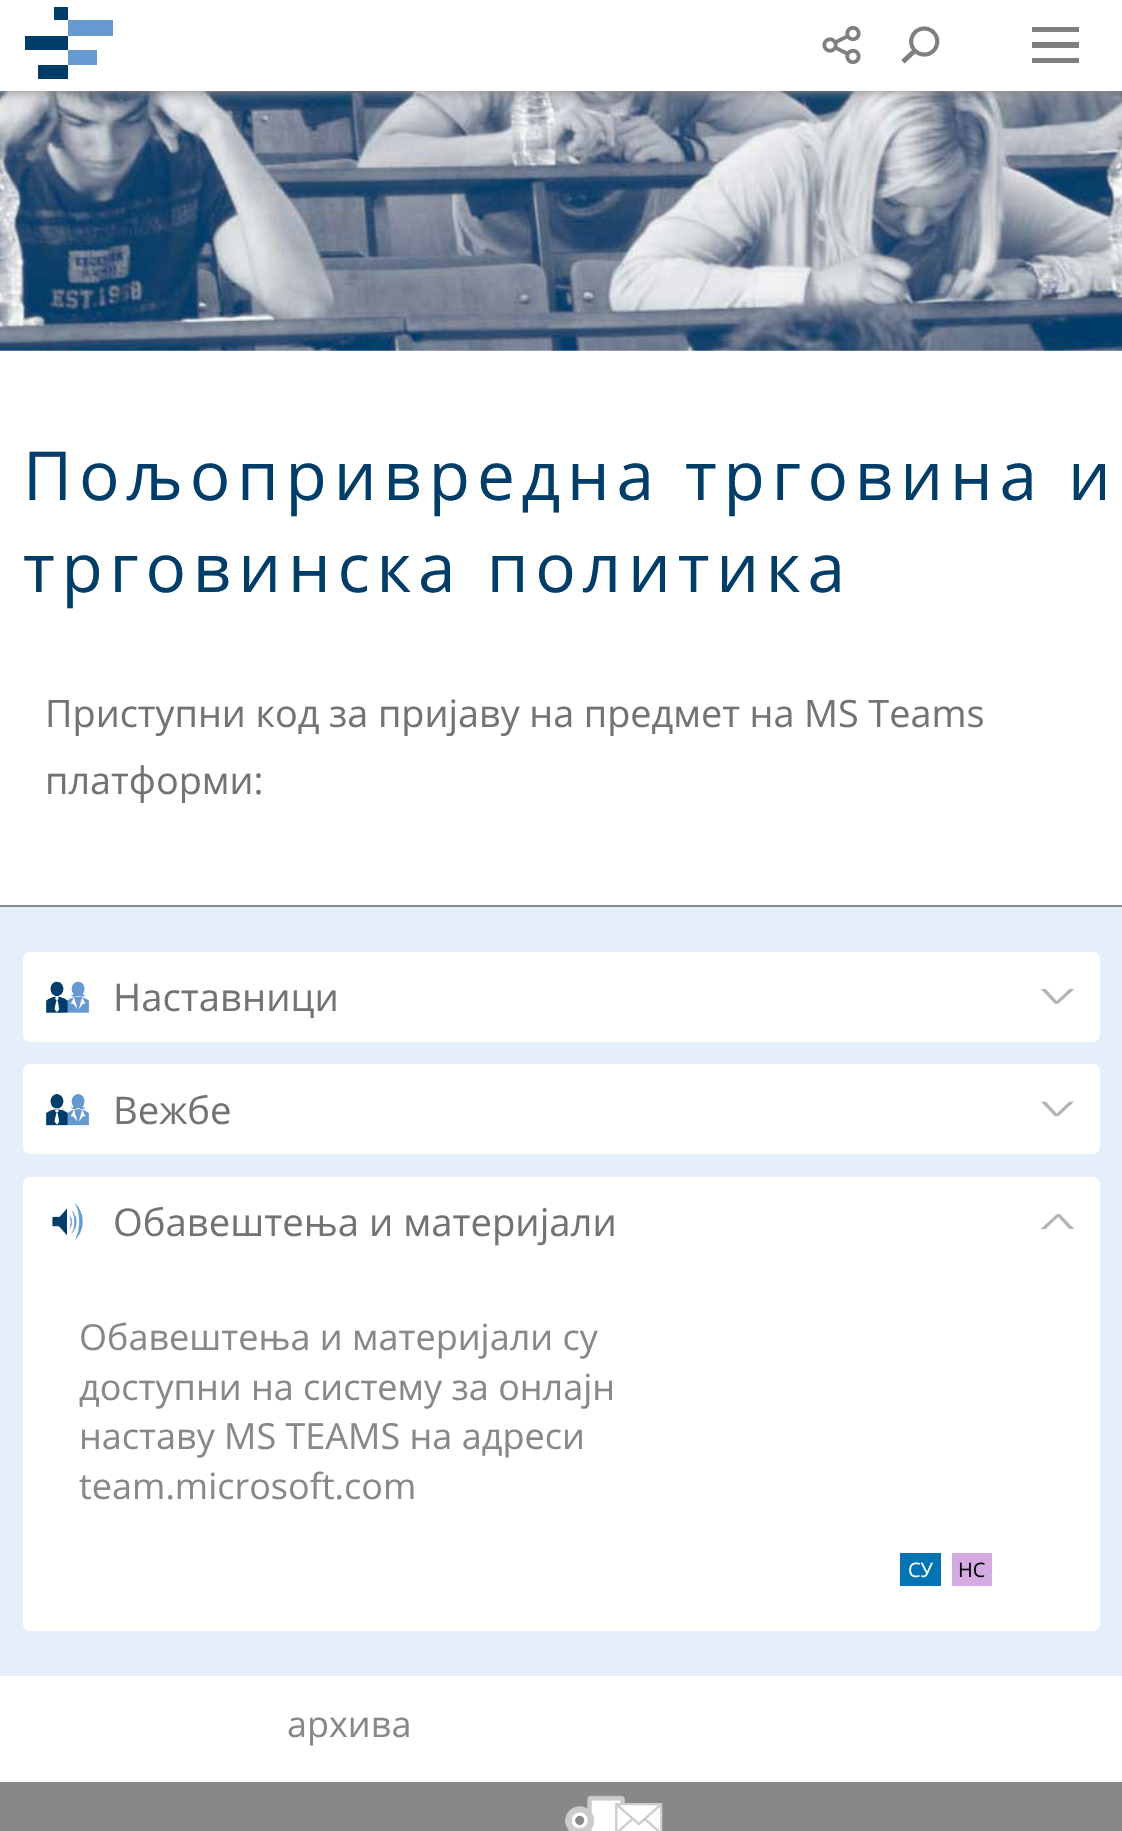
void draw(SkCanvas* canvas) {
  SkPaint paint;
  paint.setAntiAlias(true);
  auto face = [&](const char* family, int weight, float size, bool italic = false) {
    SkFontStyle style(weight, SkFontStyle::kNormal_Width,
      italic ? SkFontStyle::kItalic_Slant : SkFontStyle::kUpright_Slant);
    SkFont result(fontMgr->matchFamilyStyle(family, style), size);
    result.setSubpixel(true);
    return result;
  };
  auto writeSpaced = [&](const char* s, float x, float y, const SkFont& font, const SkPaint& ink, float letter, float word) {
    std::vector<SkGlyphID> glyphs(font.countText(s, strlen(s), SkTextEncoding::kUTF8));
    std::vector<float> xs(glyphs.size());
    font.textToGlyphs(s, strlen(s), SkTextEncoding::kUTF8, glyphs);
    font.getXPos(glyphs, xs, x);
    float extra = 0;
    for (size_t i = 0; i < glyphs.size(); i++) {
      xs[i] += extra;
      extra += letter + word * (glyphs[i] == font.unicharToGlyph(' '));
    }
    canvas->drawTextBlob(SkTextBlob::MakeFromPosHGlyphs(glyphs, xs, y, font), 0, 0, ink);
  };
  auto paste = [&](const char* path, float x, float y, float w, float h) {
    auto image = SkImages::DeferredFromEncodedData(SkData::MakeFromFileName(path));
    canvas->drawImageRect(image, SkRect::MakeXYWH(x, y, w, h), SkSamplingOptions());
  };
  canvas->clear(0xffffffff);
  paste("img/3.png", 0, 91, 1122, 260);
  paint.setColor(0xff8f8f8f);
  paint.setMaskFilter(SkMaskFilter::MakeBlur(kNormal_SkBlurStyle, 5.5f));
  canvas->drawRect(SkRect::MakeXYWH(0, 2, 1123, 90), paint);
  paint.setMaskFilter(nullptr);
  {
    const struct { float x, y, w, h; SkColor color; } items[] = {
      {0, 0, 1122, 5, 0xffffffff},
      {0, 5, 1122, 86, 0xffffffff},
      {54, 7, 14, 13, 0xff003d68},
      {25, 36, 43, 14, 0xff003d68},
      {38, 65, 30, 14, 0xff003d68},
      {68, 20, 45, 16, 0xff659ad2},
      {68, 50, 29, 15, 0xff659ad2},
    };
    for (auto [x, y, w, h, color] : items) {
      paint.setColor(color);
      canvas->drawRect(SkRect::MakeXYWH(x, y, w, h), paint);
    }
  }
  paste("img/1.png", 822, 25, 39, 40);
  paste("img/2.png", 901, 26, 39, 38);
  {
    const struct { float x, y, w, h; SkColor color; } items[] = {
      {1032, 27, 47, 5, 0xff808080},
      {1032, 42, 47, 6, 0xff808080},
      {1032, 58, 47, 5, 0xff808080},
      {0, 907, 1122, 769, 0xffe5effc},
      {0, 905, 1122, 2, 0xff888888},
    };
    for (auto [x, y, w, h, color] : items) {
      paint.setColor(color);
      canvas->drawRect(SkRect::MakeXYWH(x, y, w, h), paint);
    }
  }
  paint.setColor(0xffffffff);
  canvas->drawRoundRect(SkRect::MakeXYWH(23, 952, 1077, 90), 7, 7, paint);
  paste("img/4.png", 45, 981, 45, 32);
  paste("img/5.png", 1040, 988, 35, 16);
  canvas->drawRoundRect(SkRect::MakeXYWH(23, 1064, 1077, 90), 7, 7, paint);
  paste("img/6.png", 45, 1093, 45, 33);
  paste("img/7.png", 1041, 1101, 33, 16);
  canvas->drawRoundRect(SkRect::MakeXYWH(23, 1177, 1077, 454), 7, 7, paint);
  paste("img/8.png", 52, 1202, 31, 39);
  paste("img/9.png", 1040, 1214, 35, 16);
  {
    const struct { float x, y, w, h; SkColor color; } items[] = {
      {900, 1553, 41, 33, 0xff0274b3},
      {952, 1553, 40, 33, 0xffd5aae3},
      {0, 1782, 1122, 49, 0xff888888},
    };
    for (auto [x, y, w, h, color] : items) {
      paint.setColor(color);
      canvas->drawRect(SkRect::MakeXYWH(x, y, w, h), paint);
    }
  }
  paste("img/10.png", 565, 1795, 98, 36);
  auto f0 = face("Open Sans", 400, 67.5f);
  paint.setColor(0xff003d68);
  writeSpaced("Пољопривредна трговина и", 23, 500, f0, paint, 6.75f, 0);
  writeSpaced("трговинска политика", 23, 592, f0, paint, 6.75f, 0);
  auto f1 = face("Open Sans", 400, 37.8f);
  paint.setColor(0xff737373);
  writeSpaced("Приступни код за пријаву на предмет на MS Teams", 45, 727, f1, paint, 0, -0.25f);
  canvas->drawString("платформи:", 45, 794, f1, paint);
  auto f2 = face("Open Sans", 400, 38.25f);
  {
    const struct { const char* s; float x, y; } items[] = {
      {"Наставници", 113, 1011},
      {"Вежбе", 113, 1124},
      {"Обавештења и материјали", 113, 1236},
    };
    for (auto [s, x, y] : items) {
      canvas->drawString(s, x, y, f2, paint);
    }
  }
  auto f3 = face("Open Sans", 400, 36);
  paint.setColor(0xff888888);
  {
    const struct { const char* s; float x, y; } items[] = {
      {"Обавештења и материјали су", 79, 1350},
      {"доступни на систему за онлајн", 79, 1400},
      {"наставу MS TEAMS на адреси", 79, 1449},
      {"team.microsoft.com", 79, 1499},
    };
    for (auto [s, x, y] : items) {
      canvas->drawString(s, x, y, f3, paint);
    }
  }
  auto f4 = face("Open Sans", 400, 20);
  paint.setColor(0xffffffff);
  canvas->drawString("СУ", 908, 1577, f4, paint);
  paint.setColor(0xff000000);
  canvas->drawString("НС", 958, 1577, f4, paint);
  paint.setColor(0xff888888);
  canvas->drawString("архива", 287, 1737, f3, paint);
}
